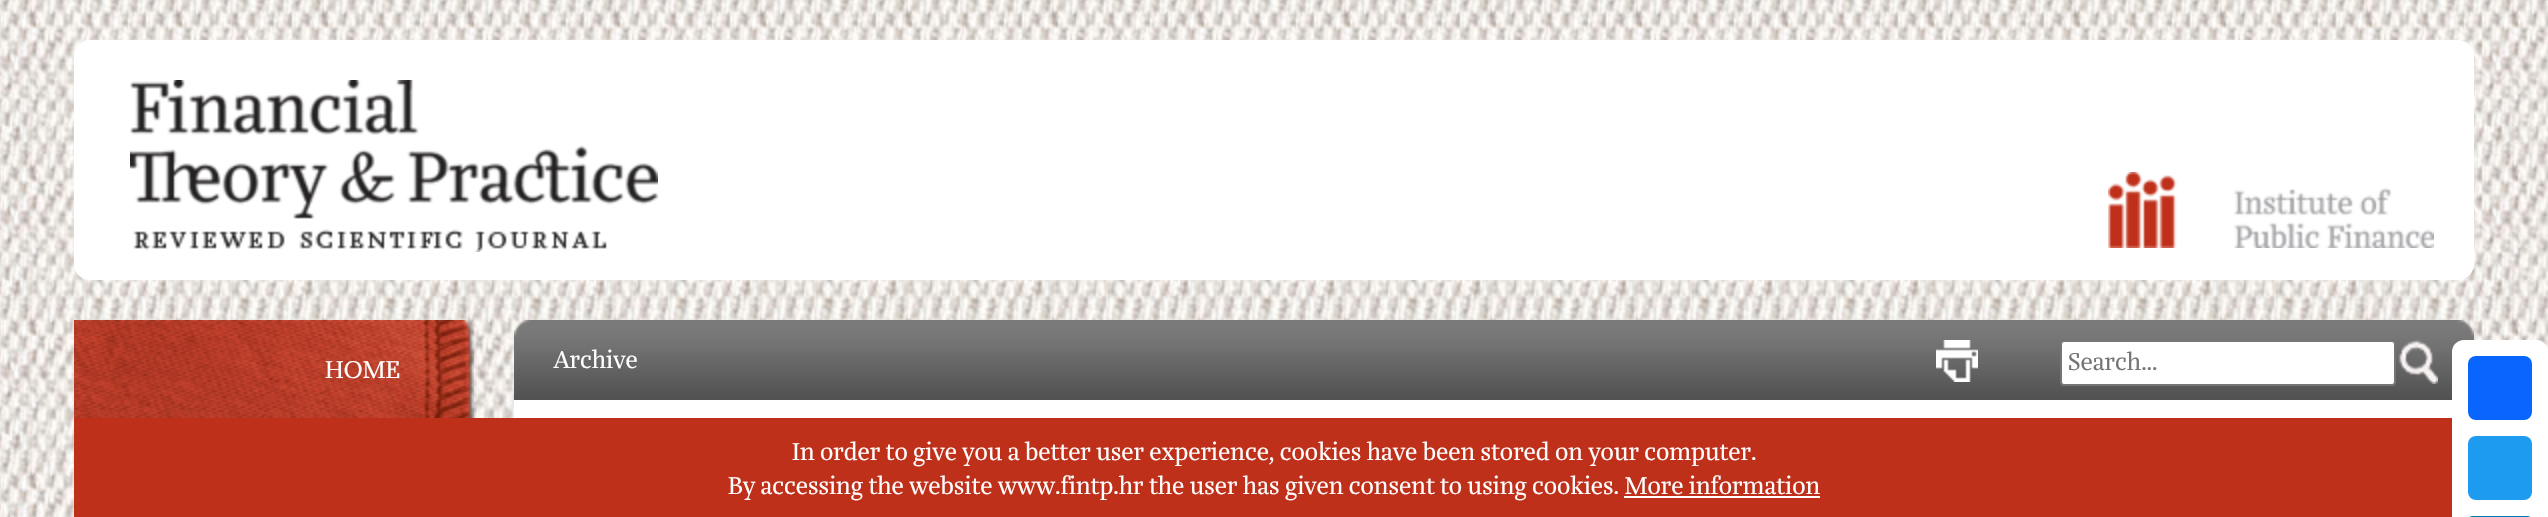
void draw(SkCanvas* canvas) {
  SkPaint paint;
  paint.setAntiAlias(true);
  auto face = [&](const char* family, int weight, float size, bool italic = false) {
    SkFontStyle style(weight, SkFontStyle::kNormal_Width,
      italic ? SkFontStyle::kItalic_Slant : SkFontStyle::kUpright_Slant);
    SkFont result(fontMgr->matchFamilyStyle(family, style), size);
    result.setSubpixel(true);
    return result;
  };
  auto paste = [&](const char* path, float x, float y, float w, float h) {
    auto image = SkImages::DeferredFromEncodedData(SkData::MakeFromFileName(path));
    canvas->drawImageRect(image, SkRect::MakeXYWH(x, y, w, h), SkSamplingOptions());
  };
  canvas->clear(0xffffffff);
  paste("img/1.png", 0, 0, 2548, 517);
  paint.setColor(0xffffffff);
  canvas->drawRoundRect(SkRect::MakeXYWH(74, 40, 2400, 240), 16, 16, paint);
  paste("img/2.png", 130, 80, 528, 172);
  paste("img/3.png", 2108, 172, 326, 76);
  paste("img/4.png", 74, 320, 400, 98);
  paste("img/5.png", 514, 320, 1960, 80);
  paste("img/6.png", 1936, 340, 42, 42);
  canvas->drawRoundRect(SkRect::MakeXYWH(2061, 341, 334, 44), 3, 3, paint);
  paint.setStroke(true);
  paint.setStrokeWidth(2);
  paint.setColor(0xff767676);
  canvas->drawRoundRect(SkRect::MakeXYWH(2061, 341, 334, 44), 3, 3, paint);
  paste("img/7.png", 2398, 340, 40, 44);
  paint.setStroke(false);
  paint.setColor(0xffffffff);
  canvas->drawRect(SkRect::MakeXYWH(514, 400, 1938, 18), paint);
  canvas->drawRoundRect(SkRect::MakeXYWH(2452, 340, 96, 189), 12, 12, paint);
  paint.setColor(0xff0866ff);
  canvas->drawRoundRect(SkRect::MakeXYWH(2468, 356, 64, 64), 8, 8, paint);
  paint.setColor(0xff1d9bf0);
  canvas->drawRoundRect(SkRect::MakeXYWH(2468, 436, 64, 64), 8, 8, paint);
  paint.setColor(0xff007bb5);
  canvas->drawRoundRect(SkRect::MakeXYWH(2468, 516, 64, 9), 8, 8, paint);
  paint.setColor(0xffbf301a);
  canvas->drawRect(SkRect::MakeXYWH(74, 418, 2378, 99), paint);
  paint.setColor(0xffffffff);
  canvas->drawRect(SkRect::MakeXYWH(1624, 496, 196, 2), paint);
  auto f0 = face("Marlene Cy", 400, 24);
  canvas->drawString("HOME", 325, 378, f0, paint);
  canvas->drawString("Archive", 554, 368, f0, paint);
  paint.setColor(0xff757575);
  canvas->drawString("Search...", 2068, 370, f0, paint);
  paint.setColor(0xffffffff);
  canvas->drawString("In order to give you a better user experience, cookies have been stored on your computer.", 792, 460, f0, paint);
  canvas->drawString("By accessing the website www.fintp.hr the user has given consent to using cookies. More information", 728, 494, f0, paint);
}
